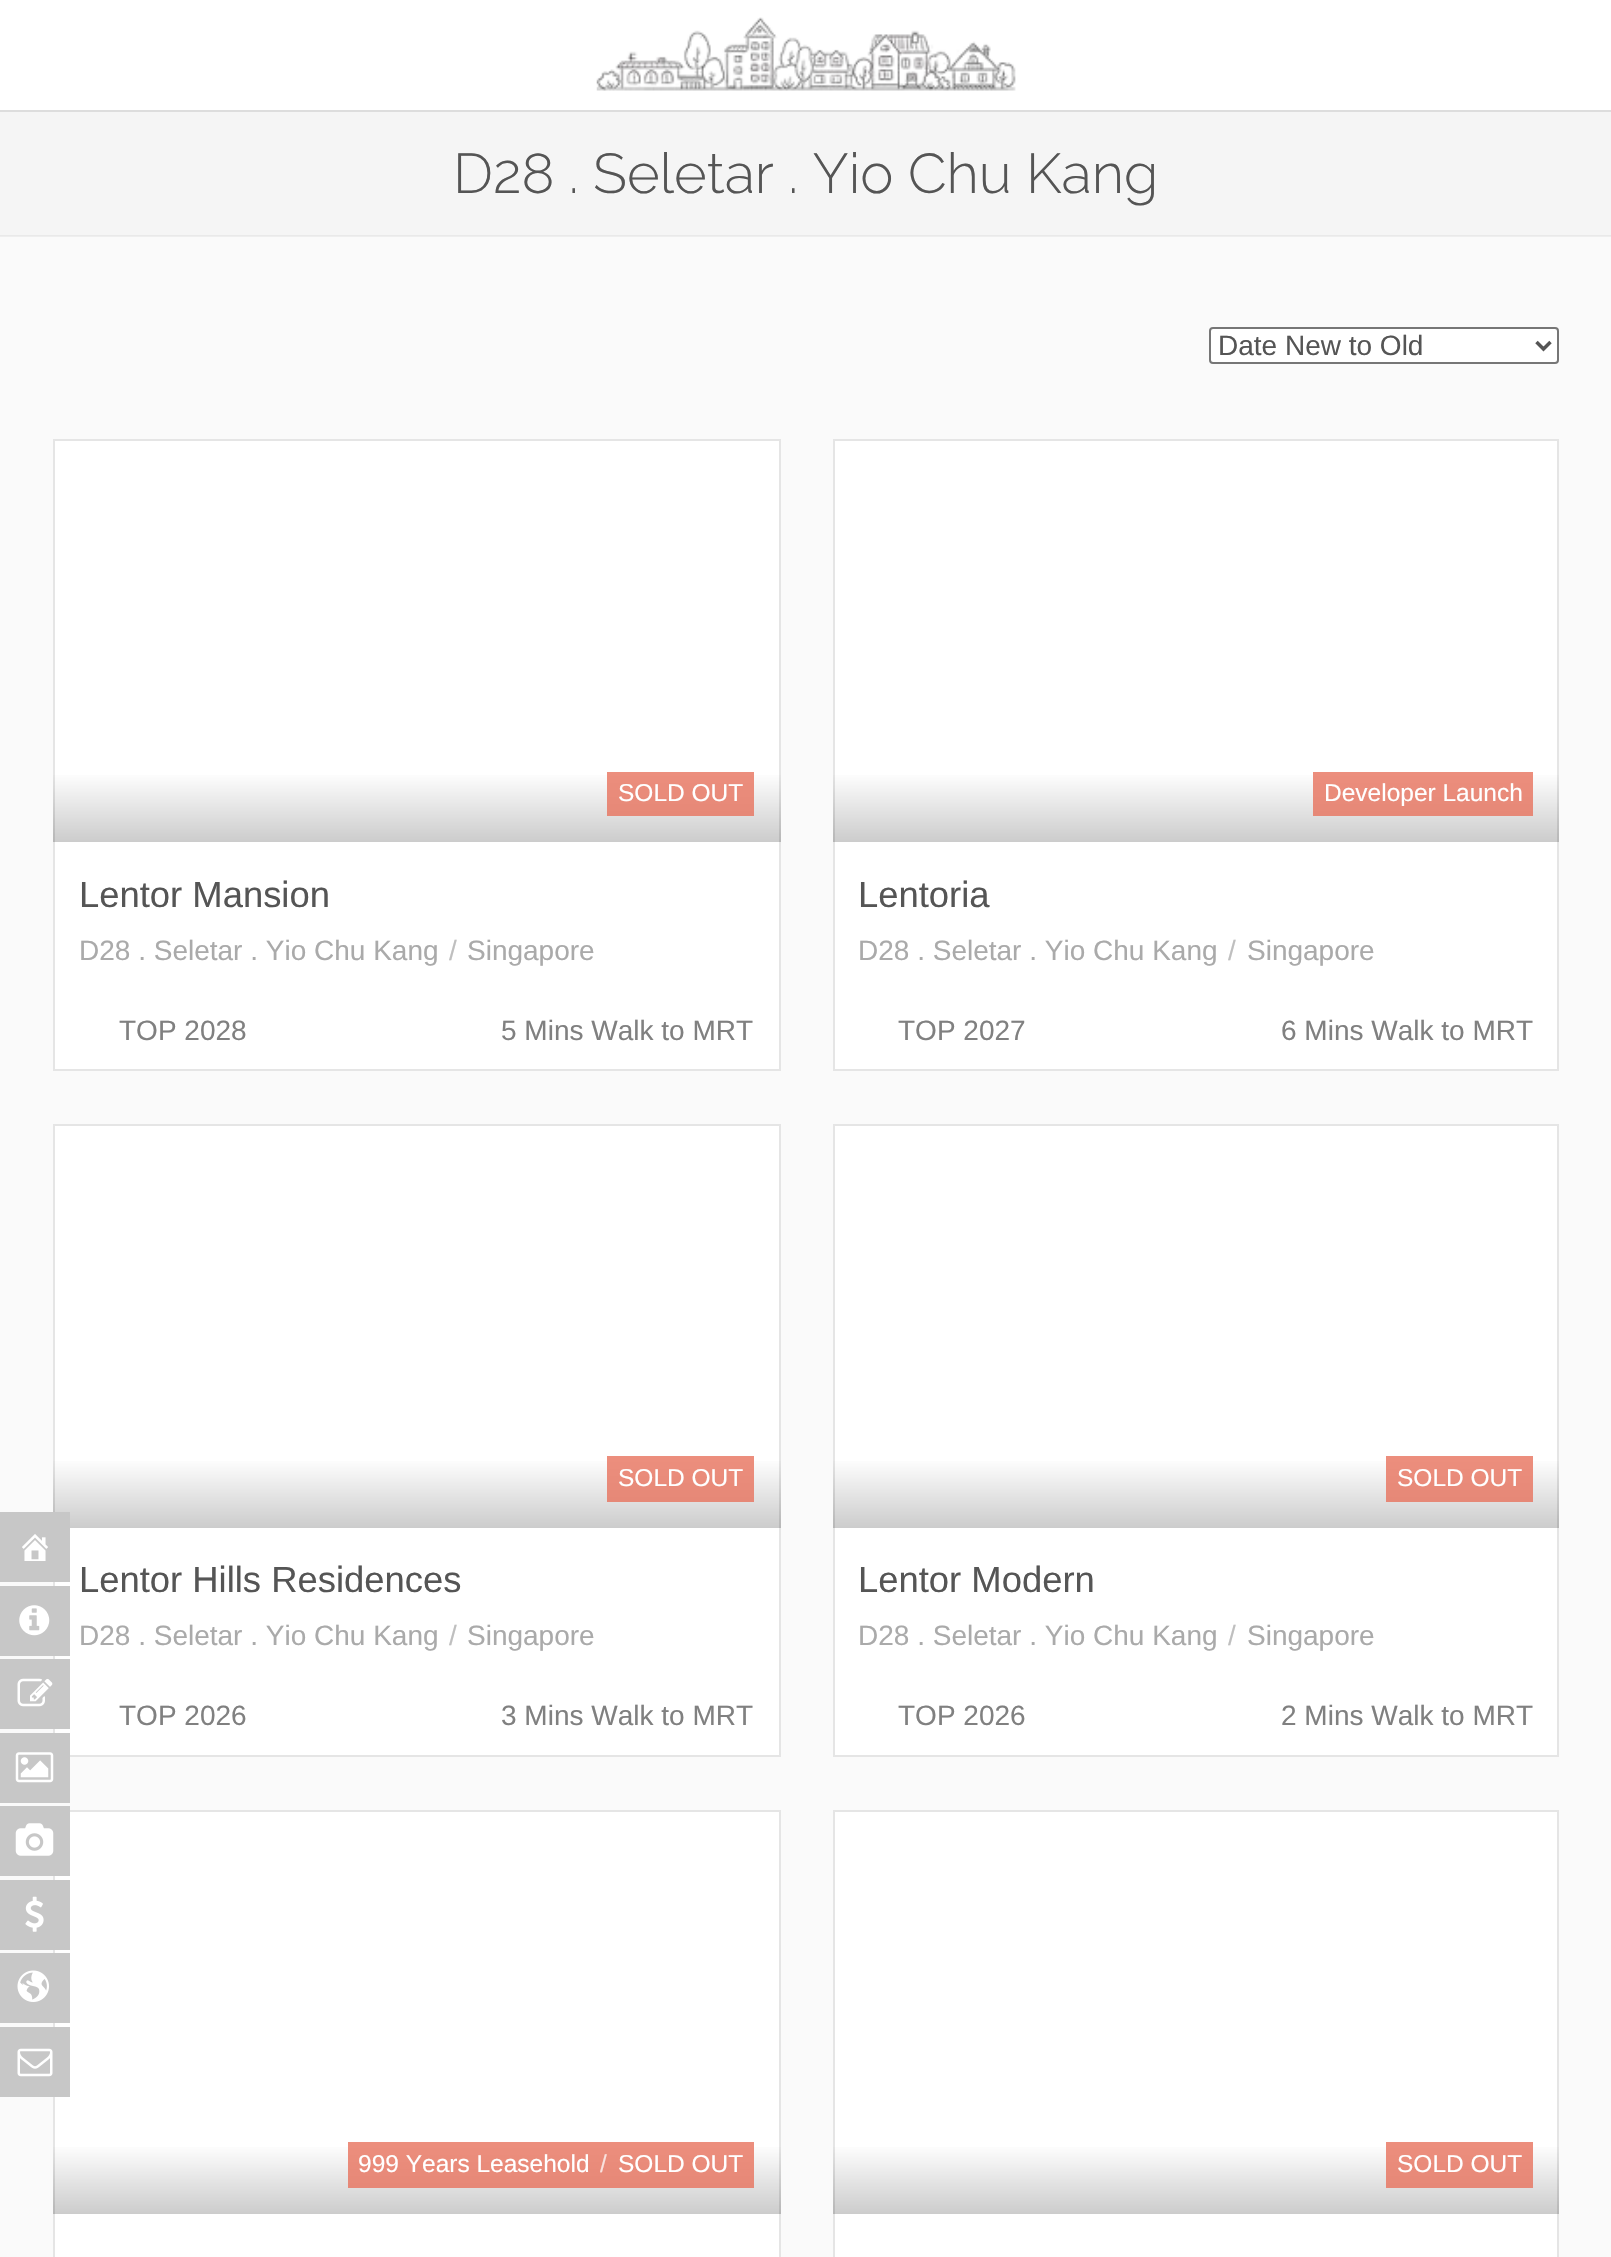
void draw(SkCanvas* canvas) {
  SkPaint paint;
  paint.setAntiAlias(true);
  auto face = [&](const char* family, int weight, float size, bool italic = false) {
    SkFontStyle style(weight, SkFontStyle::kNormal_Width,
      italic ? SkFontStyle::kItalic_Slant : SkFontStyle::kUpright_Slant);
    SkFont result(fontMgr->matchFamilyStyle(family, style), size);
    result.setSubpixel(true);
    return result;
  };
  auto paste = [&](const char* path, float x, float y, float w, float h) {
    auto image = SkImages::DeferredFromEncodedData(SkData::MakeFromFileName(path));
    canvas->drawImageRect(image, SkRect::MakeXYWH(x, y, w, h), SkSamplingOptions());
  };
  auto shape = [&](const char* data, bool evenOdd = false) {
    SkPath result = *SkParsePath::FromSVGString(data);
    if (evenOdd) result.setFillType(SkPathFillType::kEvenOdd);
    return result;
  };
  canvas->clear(0xfffafafa);
  paint.setColor(0xffffffff);
  canvas->drawRect(SkRect::MakeXYWH(53, 1124, 728, 633), paint);
  paint.setColor(0xffec8e7d);
  canvas->drawRect(SkRect::MakeXYWH(607, 1456, 147, 2), paint);
  {
    const SkColor colors[] = {0xffffffff, 0xffcccccc};
    const float stops[] = {0, 1};
    const SkPoint ends[] = {{417, 1458}, {417, 1528}};
    paint.setShader(SkGradientShader::MakeLinear(ends, colors, stops, 2, SkTileMode::kClamp));
    paint.setAlpha(255);
  }
  canvas->drawRect(SkRect::MakeXYWH(53, 1461, 728, 67), paint);
  {
    const SkColor colors[] = {0xffec8e7d, 0xffe28473};
    const float stops[] = {0, 1};
    const SkPoint ends[] = {{417, 1458}, {417, 1528}};
    paint.setShader(SkGradientShader::MakeLinear(ends, colors, stops, 2, SkTileMode::kClamp));
    paint.setAlpha(255);
  }
  canvas->drawRect(SkRect::MakeXYWH(607, 1458, 147, 44), paint);
  paint.setStroke(true);
  paint.setStrokeWidth(2);
  paint.setShader(nullptr);
  paint.setColor(0x1a000000);
  canvas->drawRect(SkRect::MakeXYWH(54, 1125, 726, 631), paint);
  paint.setStroke(false);
  paint.setColor(0xffc7c7c7);
  canvas->drawRect(SkRect::MakeXYWH(0, 1512, 70, 70), paint);
  paste("img/1.png", 22, 1534, 26, 27);
  canvas->drawRect(SkRect::MakeXYWH(0, 1586, 70, 70), paint);
  paste("img/2.png", 19, 1605, 31, 31);
  canvas->drawRect(SkRect::MakeXYWH(0, 1659, 70, 70), paint);
  paste("img/3.png", 17, 1678, 36, 29);
  canvas->drawRect(SkRect::MakeXYWH(0, 1733, 70, 70), paint);
  paste("img/4.png", 15, 1752, 39, 31);
  paint.setColor(0xffffffff);
  canvas->drawRect(SkRect::MakeXYWH(53, 1810, 728, 447), paint);
  paint.setColor(0xffec8e7d);
  canvas->drawRect(SkRect::MakeXYWH(348, 2142, 406, 2), paint);
  {
    const SkColor colors[] = {0xffffffff, 0xffcccccc};
    const float stops[] = {0, 1};
    const SkPoint ends[] = {{417, 2144}, {417, 2214}};
    paint.setShader(SkGradientShader::MakeLinear(ends, colors, stops, 2, SkTileMode::kClamp));
    paint.setAlpha(255);
  }
  canvas->drawRect(SkRect::MakeXYWH(53, 2147, 728, 67), paint);
  {
    const SkColor colors[] = {0xffec8e7d, 0xffe28473};
    const float stops[] = {0, 1};
    const SkPoint ends[] = {{417, 2144}, {417, 2214}};
    paint.setShader(SkGradientShader::MakeLinear(ends, colors, stops, 2, SkTileMode::kClamp));
    paint.setAlpha(255);
  }
  canvas->drawRect(SkRect::MakeXYWH(348, 2144, 406, 44), paint);
  paint.setStroke(true);
  paint.setShader(nullptr);
  paint.setColor(0x1a000000);
  canvas->drawRect(SkRect::MakeXYWH(54, 1811, 726, 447), paint);
  paint.setStroke(false);
  paint.setColor(0xffc7c7c7);
  canvas->drawRect(SkRect::MakeXYWH(0, 1806, 70, 70), paint);
  paste("img/5.png", 15, 1823, 39, 33);
  canvas->drawRect(SkRect::MakeXYWH(0, 1880, 70, 70), paint);
  paste("img/6.png", 25, 1896, 19, 36);
  canvas->drawRect(SkRect::MakeXYWH(0, 1953, 70, 70), paint);
  paste("img/7.png", 17, 1970, 32, 32);
  canvas->drawRect(SkRect::MakeXYWH(0, 2027, 70, 70), paint);
  paste("img/8.png", 17, 2048, 36, 29);
  paint.setColor(0xffeeeeee);
  canvas->drawRect(SkRect::MakeXYWH(0, 236, 1611, 1), paint);
  paint.setColor(0xffffffff);
  canvas->drawRect(SkRect::MakeXYWH(0, 0, 1611, 110), paint);
  paste("img/9.png", 596, 17, 420, 74);
  {
    const struct { float x, y, w, h; SkColor color; } items[] = {
      {0, 110, 1611, 2, 0xffdddddd},
      {0, 112, 1611, 123, 0xfff5f5f5},
      {0, 235, 1611, 1, 0xffe9e9e9},
    };
    for (auto [x, y, w, h, color] : items) {
      paint.setColor(color);
      canvas->drawRect(SkRect::MakeXYWH(x, y, w, h), paint);
    }
  }
  paint.setColor(0xffffffff);
  canvas->drawRoundRect(SkRect::MakeXYWH(1210, 328, 348, 35), 3, 3, paint);
  paint.setStroke(true);
  paint.setColor(0xff767676);
  canvas->drawRoundRect(SkRect::MakeXYWH(1210, 328, 348, 35), 3, 3, paint);
  paint.setStrokeWidth(3.5f);
  paint.setColor(0xff555555);
  canvas->drawPath(shape("M1536.5 342L1543.5 349L1550.5 342"), paint);
  paint.setStroke(false);
  paint.setColor(0xffffffff);
  canvas->drawRect(SkRect::MakeXYWH(53, 439, 728, 632), paint);
  {
    const SkColor colors[] = {0xffffffff, 0xffcccccc};
    const float stops[] = {0, 1};
    const SkPoint ends[] = {{417, 772}, {417, 842}};
    paint.setShader(SkGradientShader::MakeLinear(ends, colors, stops, 2, SkTileMode::kClamp));
    paint.setAlpha(255);
  }
  canvas->drawRect(SkRect::MakeXYWH(53, 775, 728, 67), paint);
  {
    const SkColor colors[] = {0xffec8e7d, 0xffe28473};
    const float stops[] = {0, 1};
    const SkPoint ends[] = {{417, 772}, {417, 842}};
    paint.setShader(SkGradientShader::MakeLinear(ends, colors, stops, 2, SkTileMode::kClamp));
    paint.setAlpha(255);
  }
  canvas->drawRect(SkRect::MakeXYWH(607, 772, 147, 44), paint);
  paint.setStroke(true);
  paint.setStrokeWidth(2);
  paint.setShader(nullptr);
  paint.setColor(0x1a000000);
  canvas->drawRect(SkRect::MakeXYWH(54, 440, 726, 630), paint);
  paint.setStroke(false);
  paint.setColor(0xffffffff);
  canvas->drawRect(SkRect::MakeXYWH(833, 439, 726, 632), paint);
  {
    const SkColor colors[] = {0xffffffff, 0xffcccccc};
    const float stops[] = {0, 1};
    const SkPoint ends[] = {{1196, 772}, {1196, 842}};
    paint.setShader(SkGradientShader::MakeLinear(ends, colors, stops, 2, SkTileMode::kClamp));
    paint.setAlpha(255);
  }
  canvas->drawRect(SkRect::MakeXYWH(833, 775, 726, 67), paint);
  {
    const SkColor colors[] = {0xffec8e7d, 0xffe28473};
    const float stops[] = {0, 1};
    const SkPoint ends[] = {{1196, 772}, {1196, 842}};
    paint.setShader(SkGradientShader::MakeLinear(ends, colors, stops, 2, SkTileMode::kClamp));
    paint.setAlpha(255);
  }
  canvas->drawRect(SkRect::MakeXYWH(1313, 772, 220, 44), paint);
  paint.setStroke(true);
  paint.setShader(nullptr);
  paint.setColor(0x1a000000);
  canvas->drawRect(SkRect::MakeXYWH(834, 440, 724, 630), paint);
  paint.setStroke(false);
  paint.setColor(0xffffffff);
  canvas->drawRect(SkRect::MakeXYWH(833, 1124, 726, 633), paint);
  paint.setColor(0xffec8e7d);
  canvas->drawRect(SkRect::MakeXYWH(1386, 1456, 147, 2), paint);
  {
    const SkColor colors[] = {0xffffffff, 0xffcccccc};
    const float stops[] = {0, 1};
    const SkPoint ends[] = {{1196, 1458}, {1196, 1528}};
    paint.setShader(SkGradientShader::MakeLinear(ends, colors, stops, 2, SkTileMode::kClamp));
    paint.setAlpha(255);
  }
  canvas->drawRect(SkRect::MakeXYWH(833, 1461, 726, 67), paint);
  {
    const SkColor colors[] = {0xffec8e7d, 0xffe28473};
    const float stops[] = {0, 1};
    const SkPoint ends[] = {{1196, 1458}, {1196, 1528}};
    paint.setShader(SkGradientShader::MakeLinear(ends, colors, stops, 2, SkTileMode::kClamp));
    paint.setAlpha(255);
  }
  canvas->drawRect(SkRect::MakeXYWH(1386, 1458, 147, 44), paint);
  paint.setStroke(true);
  paint.setShader(nullptr);
  paint.setColor(0x1a000000);
  canvas->drawRect(SkRect::MakeXYWH(834, 1125, 724, 631), paint);
  paint.setStroke(false);
  paint.setColor(0xffffffff);
  canvas->drawRect(SkRect::MakeXYWH(833, 1810, 726, 447), paint);
  paint.setColor(0xffec8e7d);
  canvas->drawRect(SkRect::MakeXYWH(1386, 2142, 147, 2), paint);
  {
    const SkColor colors[] = {0xffffffff, 0xffcccccc};
    const float stops[] = {0, 1};
    const SkPoint ends[] = {{1196, 2144}, {1196, 2214}};
    paint.setShader(SkGradientShader::MakeLinear(ends, colors, stops, 2, SkTileMode::kClamp));
    paint.setAlpha(255);
  }
  canvas->drawRect(SkRect::MakeXYWH(833, 2147, 726, 67), paint);
  {
    const SkColor colors[] = {0xffec8e7d, 0xffe28473};
    const float stops[] = {0, 1};
    const SkPoint ends[] = {{1196, 2144}, {1196, 2214}};
    paint.setShader(SkGradientShader::MakeLinear(ends, colors, stops, 2, SkTileMode::kClamp));
    paint.setAlpha(255);
  }
  canvas->drawRect(SkRect::MakeXYWH(1386, 2144, 147, 44), paint);
  paint.setStroke(true);
  paint.setShader(nullptr);
  paint.setColor(0x1a000000);
  canvas->drawRect(SkRect::MakeXYWH(834, 1811, 724, 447), paint);
  auto f0 = face("Raleway", 300, 56);
  paint.setStroke(false);
  paint.setColor(0xff555555);
  canvas->drawString("D28 . Seletar . Yio Chu Kang", 453, 193, f0, paint);
  auto f1 = face("Liberation Sans", 400, 28);
  canvas->drawString("Date New to Old", 1218, 355, f1, paint);
  auto f2 = face("Liberation Sans", 400, 24.5f);
  paint.setColor(0xffffffff);
  canvas->drawString("SOLD OUT", 618, 801, f2, paint);
  auto f3 = face("Liberation Sans", 400, 36.4f);
  paint.setColor(0xff555555);
  canvas->drawString("Lentor Mansion", 79, 907, f3, paint);
  paint.setColor(0xffaaaaaa);
  canvas->drawString("D28 . Seletar . Yio Chu Kang", 79, 960, f1, paint);
  paint.setColor(0xffbfbfbf);
  canvas->drawString("/", 449, 960, f1, paint);
  paint.setColor(0xffaaaaaa);
  canvas->drawString("Singapore", 467, 960, f1, paint);
  paint.setColor(0xff808080);
  canvas->drawString("TOP 2028", 119, 1040, f1, paint);
  canvas->drawString("5 Mins Walk to MRT", 501, 1040, f1, paint);
  paint.setColor(0xffffffff);
  canvas->drawString("Developer Launch", 1324, 801, f2, paint);
  paint.setColor(0xff555555);
  canvas->drawString("Lentoria", 858, 907, f3, paint);
  paint.setColor(0xffaaaaaa);
  canvas->drawString("D28 . Seletar . Yio Chu Kang", 858, 960, f1, paint);
  paint.setColor(0xffbfbfbf);
  canvas->drawString("/", 1228, 960, f1, paint);
  paint.setColor(0xffaaaaaa);
  canvas->drawString("Singapore", 1247, 960, f1, paint);
  paint.setColor(0xff808080);
  canvas->drawString("TOP 2027", 898, 1040, f1, paint);
  canvas->drawString("6 Mins Walk to MRT", 1281, 1040, f1, paint);
  paint.setColor(0xffffffff);
  canvas->drawString("SOLD OUT", 618, 1486, f2, paint);
  paint.setColor(0xff555555);
  canvas->drawString("Lentor Hills Residences", 79, 1592, f3, paint);
  paint.setColor(0xffaaaaaa);
  canvas->drawString("D28 . Seletar . Yio Chu Kang", 79, 1645, f1, paint);
  paint.setColor(0xffbfbfbf);
  canvas->drawString("/", 449, 1645, f1, paint);
  paint.setColor(0xffaaaaaa);
  canvas->drawString("Singapore", 467, 1645, f1, paint);
  paint.setColor(0xff808080);
  canvas->drawString("TOP 2026", 119, 1725, f1, paint);
  canvas->drawString("3 Mins Walk to MRT", 501, 1725, f1, paint);
  paint.setColor(0xffffffff);
  canvas->drawString("SOLD OUT", 1397, 1486, f2, paint);
  paint.setColor(0xff555555);
  canvas->drawString("Lentor Modern", 858, 1592, f3, paint);
  paint.setColor(0xffaaaaaa);
  canvas->drawString("D28 . Seletar . Yio Chu Kang", 858, 1645, f1, paint);
  paint.setColor(0xffbfbfbf);
  canvas->drawString("/", 1228, 1645, f1, paint);
  paint.setColor(0xffaaaaaa);
  canvas->drawString("Singapore", 1247, 1645, f1, paint);
  paint.setColor(0xff808080);
  canvas->drawString("TOP 2026", 898, 1725, f1, paint);
  canvas->drawString("2 Mins Walk to MRT", 1281, 1725, f1, paint);
  paint.setColor(0xffffffff);
  canvas->drawString("999 Years Leasehold", 358, 2172, f2, paint);
  paint.setColor(0xfff9e2de);
  canvas->drawString("/", 600, 2172, f2, paint);
  paint.setColor(0xffffffff);
  canvas->drawString("SOLD OUT", 618, 2172, f2, paint);
  canvas->drawString("SOLD OUT", 1397, 2172, f2, paint);
}
